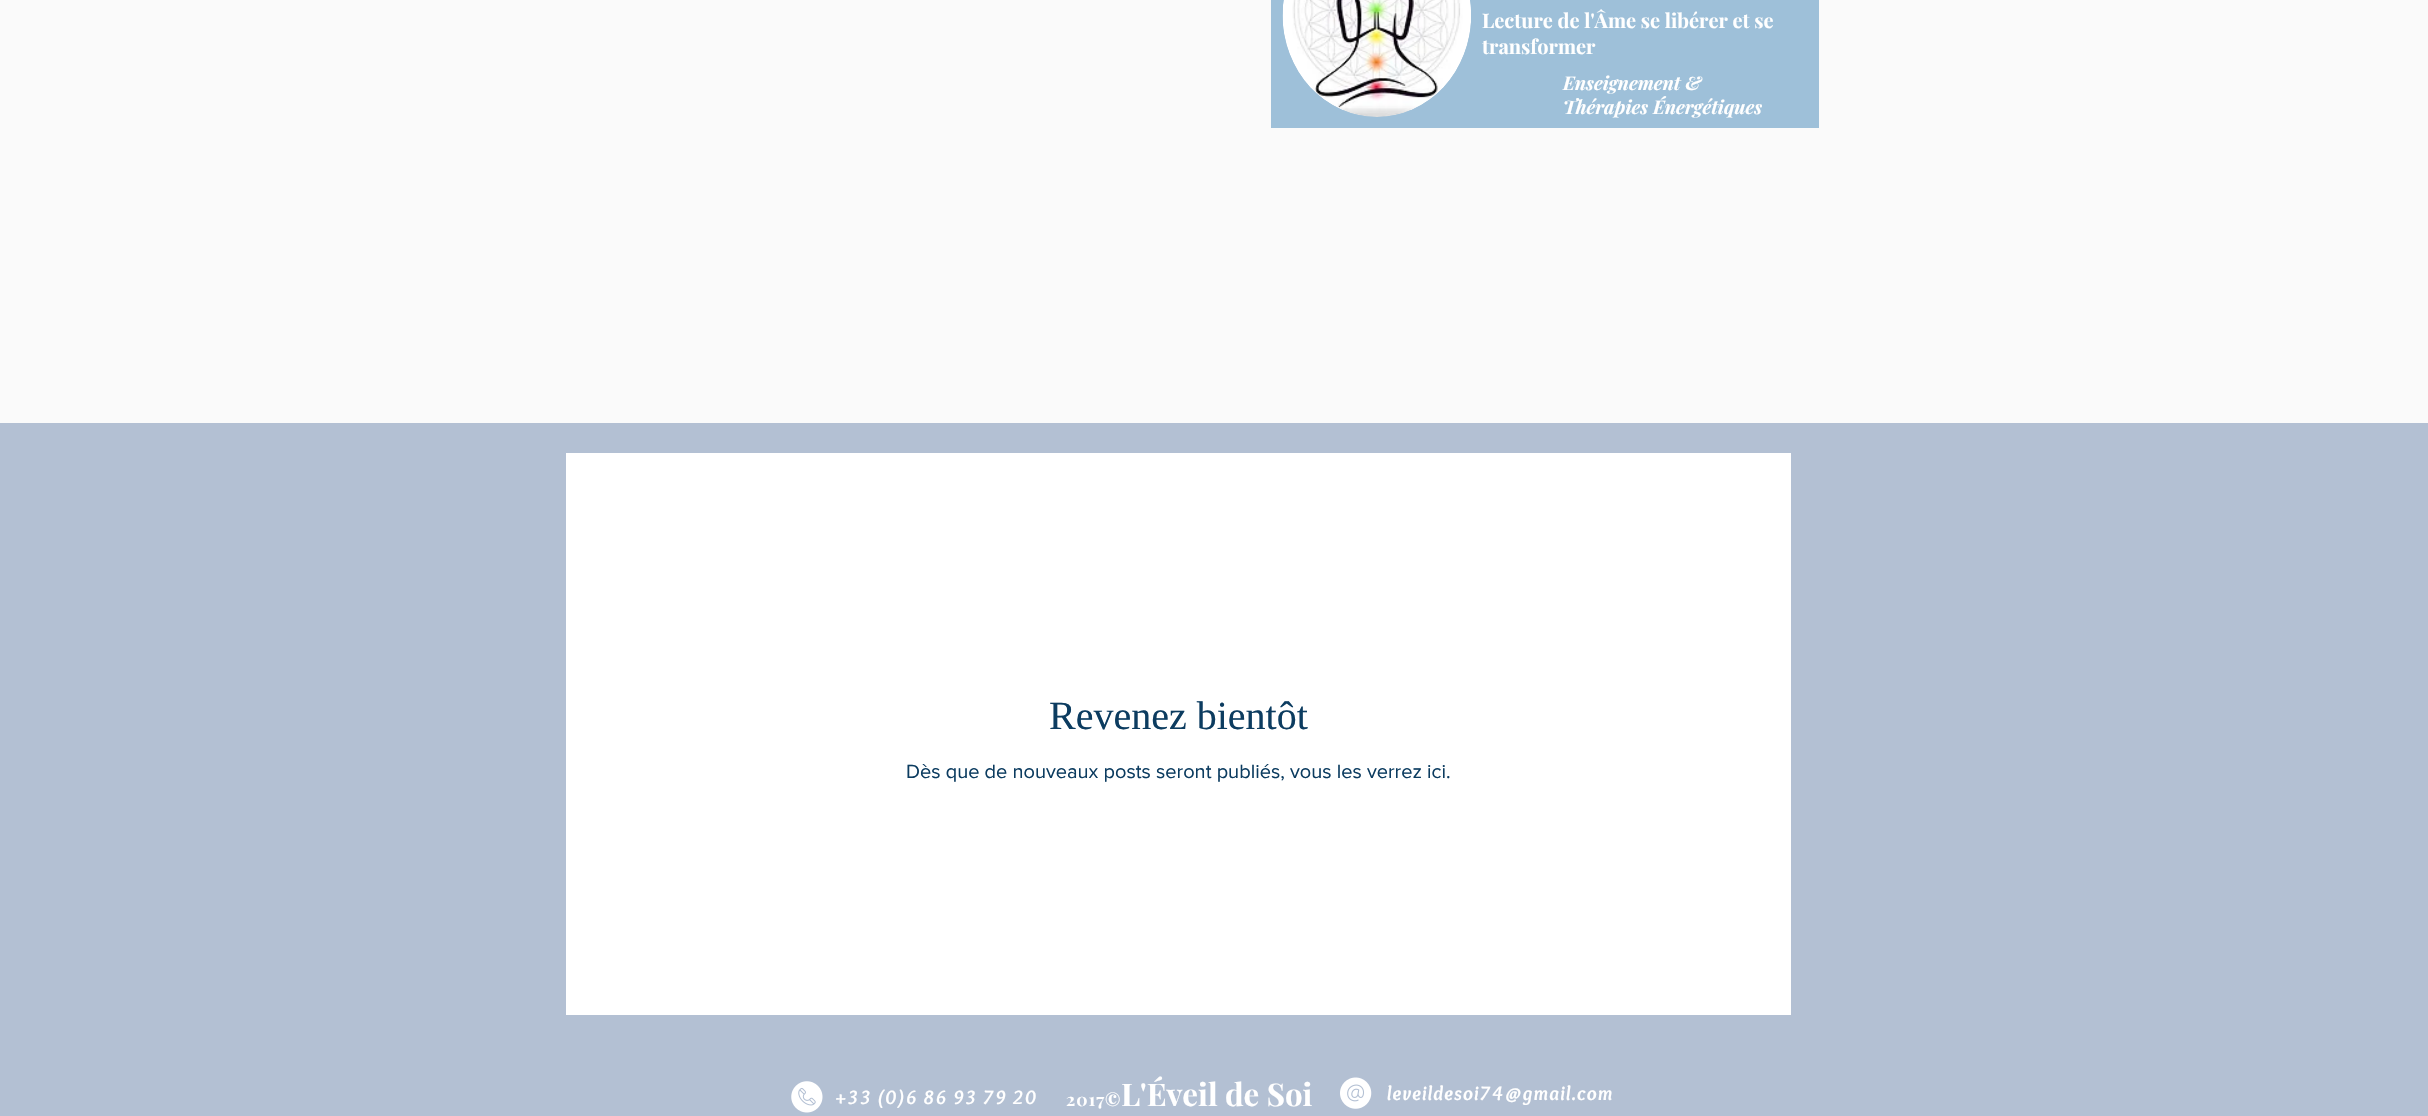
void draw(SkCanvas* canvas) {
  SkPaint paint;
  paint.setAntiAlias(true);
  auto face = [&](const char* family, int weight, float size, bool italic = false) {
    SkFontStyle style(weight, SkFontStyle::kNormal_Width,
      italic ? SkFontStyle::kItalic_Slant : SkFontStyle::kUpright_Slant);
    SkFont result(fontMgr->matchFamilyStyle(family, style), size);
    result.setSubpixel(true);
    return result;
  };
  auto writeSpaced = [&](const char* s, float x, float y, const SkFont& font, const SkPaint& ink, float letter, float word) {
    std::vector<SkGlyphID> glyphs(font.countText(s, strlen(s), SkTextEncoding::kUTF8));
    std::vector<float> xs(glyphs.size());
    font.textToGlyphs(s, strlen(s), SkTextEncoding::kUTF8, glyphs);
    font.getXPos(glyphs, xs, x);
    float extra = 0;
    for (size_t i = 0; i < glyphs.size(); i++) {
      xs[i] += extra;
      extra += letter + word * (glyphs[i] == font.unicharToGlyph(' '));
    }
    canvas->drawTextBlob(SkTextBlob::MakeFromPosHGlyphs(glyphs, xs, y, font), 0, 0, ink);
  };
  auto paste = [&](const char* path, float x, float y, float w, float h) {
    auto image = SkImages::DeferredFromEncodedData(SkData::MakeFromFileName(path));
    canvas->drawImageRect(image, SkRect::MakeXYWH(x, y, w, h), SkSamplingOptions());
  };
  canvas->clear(0xffb3c0d3);
  paint.setColor(0xfffafafa);
  canvas->drawRect(SkRect::MakeXYWH(0, 0, 2428, 423), paint);
  paint.setColor(0xff9ec0d9);
  canvas->drawRect(SkRect::MakeXYWH(1271, 0, 548, 128), paint);
  paste("img/1.png", 1282, 0, 189, 117);
  paint.setColor(0xffffffff);
  canvas->drawRect(SkRect::MakeXYWH(566, 453, 1225, 562), paint);
  paste("img/2.png", 791, 1081, 32, 32);
  paste("img/3.png", 1340, 1077, 32, 32);
  auto f0 = face("Playfair Display", 700, 20);
  canvas->drawString("Lecture de l'Âme se libérer et se", 1482, 28, f0, paint);
  canvas->drawString("transformer", 1482, 54, f0, paint);
  auto f1 = face("Playfair Display", 700, 18.75f, true);
  canvas->drawString("Enseignement &", 1563, 90, f1, paint);
  canvas->drawString("Thérapies Énergétiques", 1563, 114, f1, paint);
  auto f2 = face("Liberation Serif", 400, 40);
  paint.setColor(0xff0c3c60);
  canvas->drawString("Revenez bientôt", 1049, 729, f2, paint);
  auto f3 = face("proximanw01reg", 400, 20);
  canvas->drawString("Dès que de nouveaux posts seront publiés, vous les verrez ici.", 906, 778, f3, paint);
  auto f4 = face("Overlock", 700, 20, true);
  paint.setColor(0xffffffff);
  writeSpaced("+33 (0)6 86 93 79 20", 835, 1104, f4, paint, 1, 0);
  auto f5 = face("Playfair Display", 700, 17.5f);
  writeSpaced("2017©", 1066, 1106, f5, paint, 1, 0);
  auto f6 = face("Playfair Display", 700, 31.25f);
  canvas->drawString("L'Éveil de Soi", 1121, 1106, f6, paint);
  writeSpaced("leveildesoi74@gmail.com", 1387, 1100, f4, paint, 1, 0);
}
